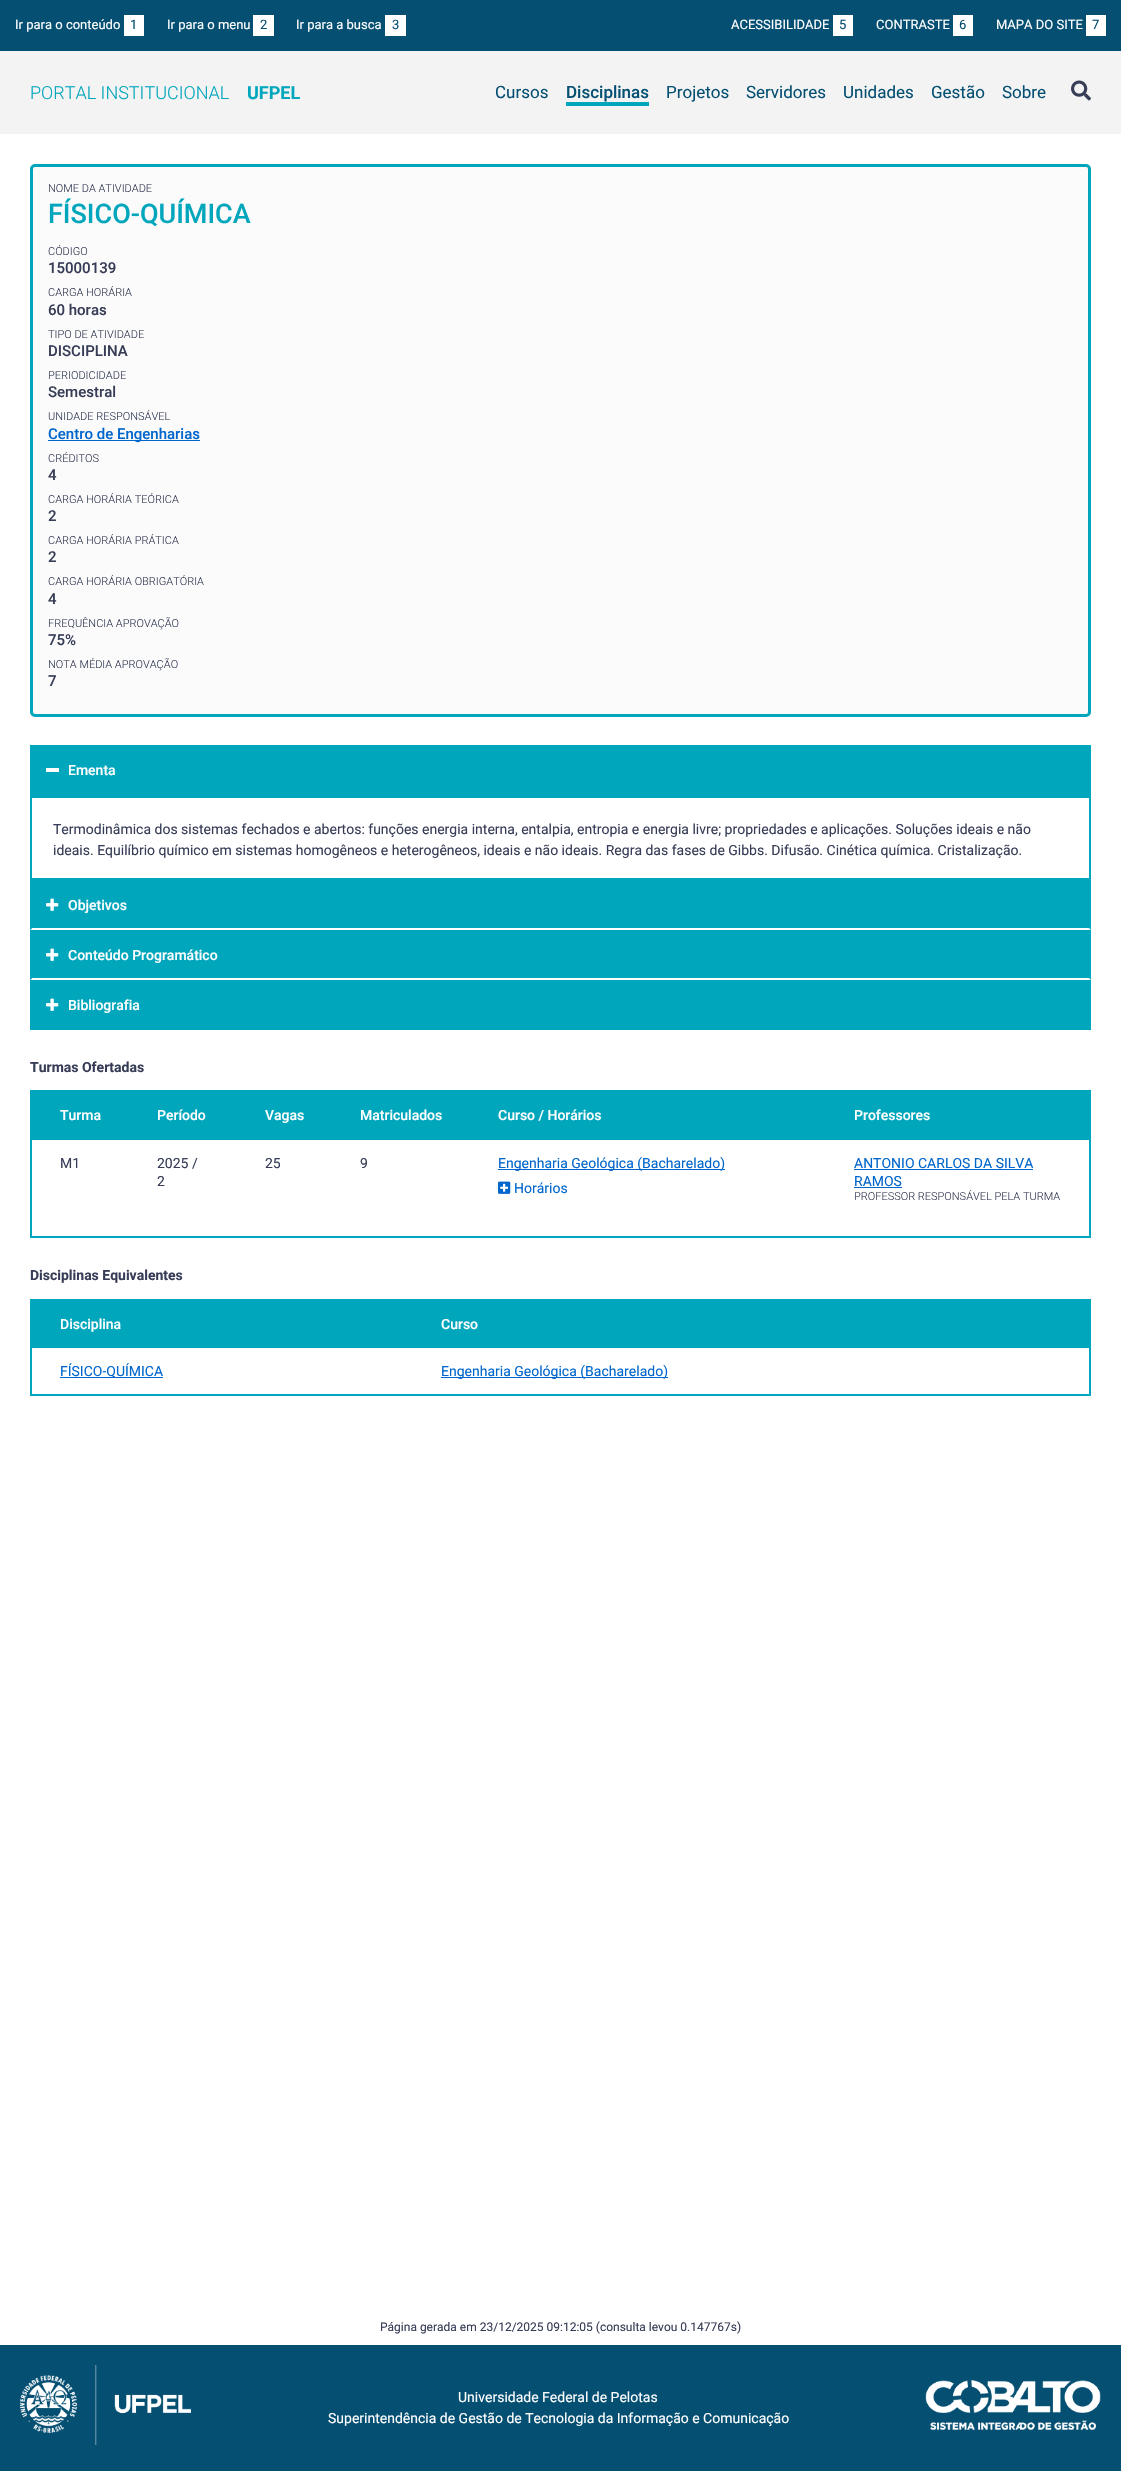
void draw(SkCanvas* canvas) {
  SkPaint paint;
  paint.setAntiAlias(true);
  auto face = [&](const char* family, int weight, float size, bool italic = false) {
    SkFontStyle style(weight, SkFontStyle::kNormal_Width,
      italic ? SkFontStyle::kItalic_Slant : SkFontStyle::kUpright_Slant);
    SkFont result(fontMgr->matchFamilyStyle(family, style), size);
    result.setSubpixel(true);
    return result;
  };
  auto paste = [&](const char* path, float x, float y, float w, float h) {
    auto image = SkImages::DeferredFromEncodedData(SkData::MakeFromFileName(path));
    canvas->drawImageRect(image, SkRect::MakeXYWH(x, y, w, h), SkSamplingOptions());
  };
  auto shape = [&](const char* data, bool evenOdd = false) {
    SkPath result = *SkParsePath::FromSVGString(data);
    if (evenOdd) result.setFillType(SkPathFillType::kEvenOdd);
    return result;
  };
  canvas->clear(0xffffffff);
  {
    const struct { float x, y, w, h; SkColor color; } items[] = {
      {0, 0, 1121, 51, 0xff054f72},
      {124, 15, 20, 21, 0xffffffff},
      {253, 15, 21, 21, 0xffffffff},
      {385, 15, 21, 21, 0xffffffff},
      {833, 15, 20, 21, 0xffffffff},
      {953, 15, 20, 21, 0xffffffff},
      {1086, 15, 20, 21, 0xffffffff},
      {0, 51, 1121, 83, 0xfff3f3f3},
      {566, 102, 83, 4, 0xff00a6bc},
    };
    for (auto [x, y, w, h, color] : items) {
      paint.setColor(color);
      canvas->drawRect(SkRect::MakeXYWH(x, y, w, h), paint);
    }
  }
  paste("img/1.png", 1071, 80, 20, 21);
  paint.setColor(0xfffbfbfb);
  canvas->drawRoundRect(SkRect::MakeXYWH(31.5f, 165.5f, 1058, 550), 3.5f, 3.5f, paint);
  paint.setStroke(true);
  paint.setStrokeWidth(3);
  paint.setColor(0xff00a6bc);
  canvas->drawRoundRect(SkRect::MakeXYWH(31.5f, 165.5f, 1058, 550), 3.5f, 3.5f, paint);
  paint.setStroke(false);
  {
    const struct { float x, y, w, h; SkColor color; } items[] = {
      {48, 440, 152, 1, 0xff0066cc},
      {30, 745, 1061, 51, 0xff00a6bc},
      {46, 768, 13, 4, 0xffffffff},
    };
    for (auto [x, y, w, h, color] : items) {
      paint.setColor(color);
      canvas->drawRect(SkRect::MakeXYWH(x, y, w, h), paint);
    }
  }
  paint.setStroke(true);
  paint.setStrokeWidth(2);
  paint.setColor(0xff00a6bc);
  canvas->drawRect(SkRect::MakeXYWH(31, 797, 1059, 82), paint);
  paint.setStroke(false);
  canvas->drawRect(SkRect::MakeXYWH(30, 880, 1061, 150), paint);
  paint.setColor(0xffffffff);
  canvas->drawPath(shape("M1091 930H30L32 928H1089Z"), paint);
  paint.setColor(0xff00a6bc);
  canvas->drawPath(shape("M30 930V880L32 882V928Z"), paint);
  paste("img/2.png", 46, 898, 13, 13);
  paint.setColor(0xffffffff);
  canvas->drawPath(shape("M1091 980H30L32 978H1089Z"), paint);
  paint.setColor(0xff00a6bc);
  canvas->drawPath(shape("M30 980V930L32 932V978Z"), paint);
  paste("img/2.png", 46, 948, 13, 13);
  paste("img/2.png", 46, 998, 13, 13);
  {
    const struct { float x, y, w, h; SkColor color; } items[] = {
      {30, 1090, 1061, 2, 0xff00a6bc},
      {31, 1139, 1060, 1, 0xff00a6bc},
      {1089, 1090, 2, 148, 0xff00a6bc},
      {30, 1236, 1061, 2, 0xff00a6bc},
      {30, 1090, 2, 148, 0xff00a6bc},
      {32, 1092, 1057, 47, 0xff00a6bc},
      {498, 1169, 227, 1, 0xff0066cc},
    };
    for (auto [x, y, w, h, color] : items) {
      paint.setColor(color);
      canvas->drawRect(SkRect::MakeXYWH(x, y, w, h), paint);
    }
  }
  paste("img/3.png", 498, 1181, 13, 13);
  {
    const struct { float x, y, w, h; SkColor color; } items[] = {
      {854, 1169, 179, 1, 0xff0066cc},
      {854, 1187, 48, 1, 0xff0066cc},
      {30, 1299, 1061, 2, 0xff00a6bc},
      {31, 1347, 1060, 1, 0xff00a6bc},
      {1089, 1299, 2, 97, 0xff00a6bc},
      {30, 1394, 1061, 2, 0xff00a6bc},
      {30, 1299, 2, 97, 0xff00a6bc},
      {32, 1301, 1057, 46, 0xff00a6bc},
      {60, 1377, 103, 1, 0xff0066cc},
      {441, 1377, 227, 1, 0xff0066cc},
      {0, 2345, 1121, 126, 0xff054f72},
    };
    for (auto [x, y, w, h, color] : items) {
      paint.setColor(color);
      canvas->drawRect(SkRect::MakeXYWH(x, y, w, h), paint);
    }
  }
  paste("img/4.png", 20, 2365, 171, 80);
  paste("img/5.png", 925, 2380, 176, 50);
  auto f0 = face("Roboto", 400, 13);
  paint.setColor(0xffffffff);
  canvas->drawString("Ir para o conteúdo", 15, 29, f0, paint);
  paint.setColor(0xff054f72);
  canvas->drawString("1", 130, 29, f0, paint);
  paint.setColor(0xffffffff);
  canvas->drawString("Ir para o menu", 167, 29, f0, paint);
  paint.setColor(0xff054f72);
  canvas->drawString("2", 260, 29, f0, paint);
  paint.setColor(0xffffffff);
  canvas->drawString("Ir para a busca", 296, 29, f0, paint);
  paint.setColor(0xff054f72);
  canvas->drawString("3", 392, 29, f0, paint);
  paint.setColor(0xffffffff);
  canvas->drawString("ACESSIBILIDADE", 731, 29, f0, paint);
  paint.setColor(0xff054f72);
  canvas->drawString("5", 839, 29, f0, paint);
  paint.setColor(0xffffffff);
  canvas->drawString("CONTRASTE", 876, 29, f0, paint);
  paint.setColor(0xff054f72);
  canvas->drawString("6", 959, 29, f0, paint);
  paint.setColor(0xffffffff);
  canvas->drawString("MAPA DO SITE", 996, 29, f0, paint);
  paint.setColor(0xff054f72);
  canvas->drawString("7", 1092, 29, f0, paint);
  auto f1 = face("Roboto", 300, 18);
  paint.setColor(0xff00a6bc);
  canvas->drawString("PORTAL INSTITUCIONAL", 30, 99, f1, paint);
  auto f2 = face("Roboto", 700, 18);
  canvas->drawString("UFPEL", 247, 99, f2, paint);
  auto f3 = face("Roboto", 400, 17);
  paint.setColor(0xff054f72);
  canvas->drawString("Cursos", 495, 98, f3, paint);
  auto f4 = face("Roboto", 500, 17);
  canvas->drawString("Disciplinas", 566, 98, f4, paint);
  {
    const struct { const char* s; float x, y; } items[] = {
      {"Projetos", 666, 98},
      {"Servidores", 746, 98},
      {"Unidades", 843, 98},
      {"Gestão", 931, 98},
      {"Sobre", 1002, 98},
    };
    for (auto [s, x, y] : items) {
      canvas->drawString(s, x, y, f3, paint);
    }
  }
  auto f5 = face("Roboto", 300, 11);
  paint.setColor(0xff373d57);
  canvas->drawString("NOME DA ATIVIDADE", 48, 192, f5, paint);
  auto f6 = face("Roboto", 500, 27);
  paint.setColor(0xff00a6bc);
  canvas->drawString("FÍSICO-QUÍMICA", 48, 223, f6, paint);
  paint.setColor(0xff373d57);
  canvas->drawString("CÓDIGO", 48, 255, f5, paint);
  auto f7 = face("Roboto", 500, 15);
  canvas->drawString("15000139", 48, 273, f7, paint);
  canvas->drawString("CARGA HORÁRIA", 48, 296, f5, paint);
  canvas->drawString("60 horas", 48, 315, f7, paint);
  canvas->drawString("TIPO DE ATIVIDADE", 48, 338, f5, paint);
  canvas->drawString("DISCIPLINA", 48, 356, f7, paint);
  canvas->drawString("PERIODICIDADE", 48, 379, f5, paint);
  canvas->drawString("Semestral", 48, 397, f7, paint);
  canvas->drawString("UNIDADE RESPONSÁVEL", 48, 420, f5, paint);
  paint.setColor(0xff0066cc);
  canvas->drawString("Centro de Engenharias", 48, 439, f7, paint);
  paint.setColor(0xff373d57);
  canvas->drawString("CRÉDITOS", 48, 462, f5, paint);
  canvas->drawString("4", 48, 480, f7, paint);
  canvas->drawString("CARGA HORÁRIA TEÓRICA", 48, 503, f5, paint);
  canvas->drawString("2", 48, 521, f7, paint);
  canvas->drawString("CARGA HORÁRIA PRÁTICA", 48, 544, f5, paint);
  canvas->drawString("2", 48, 562, f7, paint);
  canvas->drawString("CARGA HORÁRIA OBRIGATÓRIA", 48, 585, f5, paint);
  canvas->drawString("4", 48, 604, f7, paint);
  canvas->drawString("FREQUÊNCIA APROVAÇÃO", 48, 627, f5, paint);
  canvas->drawString("75%", 48, 645, f7, paint);
  canvas->drawString("NOTA MÉDIA APROVAÇÃO", 48, 668, f5, paint);
  canvas->drawString("7", 48, 686, f7, paint);
  auto f8 = face("Roboto", 500, 14);
  paint.setColor(0xffffffff);
  canvas->drawString("Ementa", 68, 775, f8, paint);
  auto f9 = face("Roboto", 400, 14);
  paint.setColor(0xff373d57);
  canvas->drawString("Termodinâmica dos sistemas fechados e abertos: funções energia interna, entalpia, entropia e energia livre; propriedades e aplicações. Soluções ideais e não", 53, 834, f9, paint);
  canvas->drawString("ideais. Equilíbrio químico em sistemas homogêneos e heterogêneos, ideais e não ideais. Regra das fases de Gibbs. Difusão. Cinética química. Cristalização.", 53, 855, f9, paint);
  paint.setColor(0xffffffff);
  {
    const struct { const char* s; float x, y; } items[] = {
      {"Objetivos", 68, 910},
      {"Conteúdo Programático", 68, 960},
      {"Bibliografia", 68, 1010},
    };
    for (auto [s, x, y] : items) {
      canvas->drawString(s, x, y, f8, paint);
    }
  }
  auto f10 = face("Roboto", 700, 14);
  paint.setColor(0xff373d57);
  canvas->drawString("Turmas Ofertadas", 30, 1072, f10, paint);
  paint.setColor(0xffffffff);
  {
    const struct { const char* s; float x, y; } items[] = {
      {"Turma", 60, 1120},
      {"Período", 157, 1120},
      {"Vagas", 265, 1120},
      {"Matriculados", 360, 1120},
      {"Curso / Horários", 498, 1120},
      {"Professores", 854, 1120},
    };
    for (auto [s, x, y] : items) {
      canvas->drawString(s, x, y, f8, paint);
    }
  }
  paint.setColor(0xff373d57);
  {
    const struct { const char* s; float x, y; } items[] = {
      {"M1", 60, 1168},
      {"2025 /", 157, 1168},
      {"2", 157, 1186},
      {"25", 265, 1168},
      {"9", 360, 1168},
    };
    for (auto [s, x, y] : items) {
      canvas->drawString(s, x, y, f9, paint);
    }
  }
  paint.setColor(0xff0066cc);
  {
    const struct { const char* s; float x, y; } items[] = {
      {"Engenharia Geológica (Bacharelado)", 498, 1168},
      {"Horários", 514, 1193},
      {"ANTONIO CARLOS DA SILVA", 854, 1168},
      {"RAMOS", 854, 1186},
    };
    for (auto [s, x, y] : items) {
      canvas->drawString(s, x, y, f9, paint);
    }
  }
  paint.setColor(0xff373d57);
  canvas->drawString("PROFESSOR RESPONSÁVEL PELA TURMA", 854, 1200, f5, paint);
  canvas->drawString("Disciplinas Equivalentes", 30, 1280, f10, paint);
  paint.setColor(0xffffffff);
  canvas->drawString("Disciplina", 60, 1329, f8, paint);
  canvas->drawString("Curso", 441, 1329, f8, paint);
  paint.setColor(0xff0066cc);
  canvas->drawString("FÍSICO-QUÍMICA", 60, 1376, f9, paint);
  canvas->drawString("Engenharia Geológica (Bacharelado)", 441, 1376, f9, paint);
  auto f11 = face("Roboto", 400, 12);
  paint.setColor(0xff373d57);
  canvas->drawString("Página gerada em 23/12/2025 09:12:05 (consulta levou 0.147767s)", 380, 2331, f11, paint);
  paint.setColor(0xffffffff);
  canvas->drawString("Universidade Federal de Pelotas", 458, 2402, f9, paint);
  canvas->drawString("Superintendência de Gestão de Tecnologia da Informação e Comunicação", 328, 2423, f9, paint);
}
